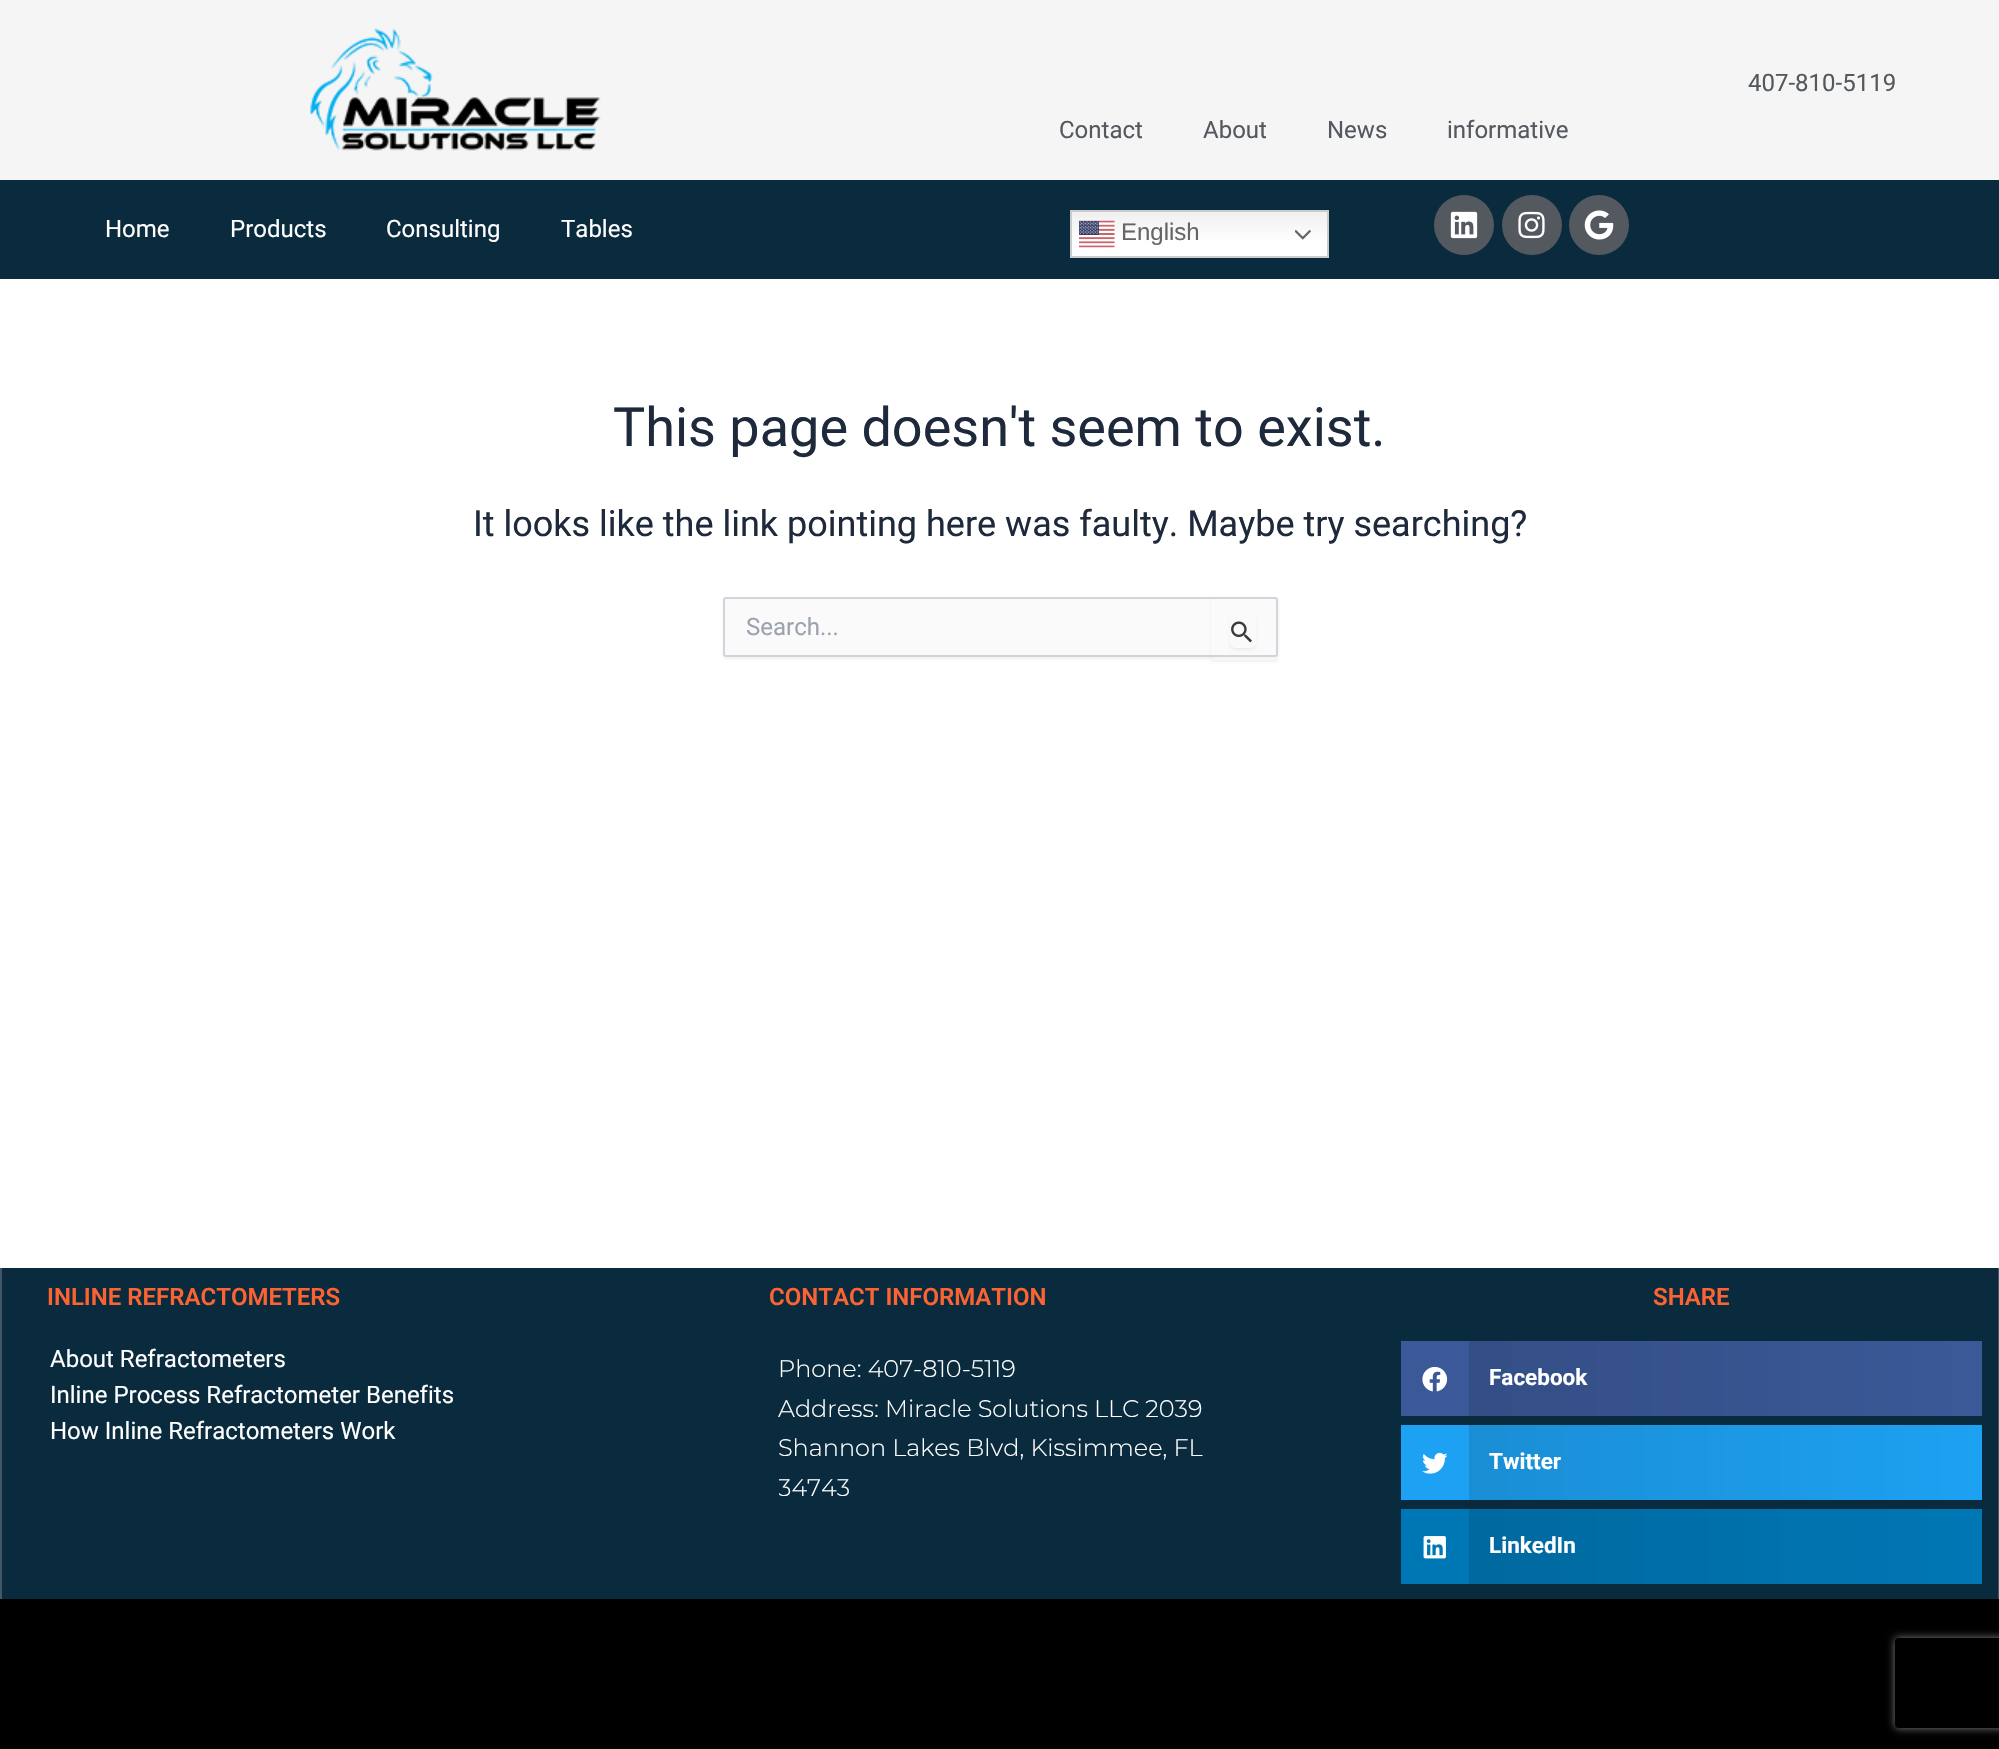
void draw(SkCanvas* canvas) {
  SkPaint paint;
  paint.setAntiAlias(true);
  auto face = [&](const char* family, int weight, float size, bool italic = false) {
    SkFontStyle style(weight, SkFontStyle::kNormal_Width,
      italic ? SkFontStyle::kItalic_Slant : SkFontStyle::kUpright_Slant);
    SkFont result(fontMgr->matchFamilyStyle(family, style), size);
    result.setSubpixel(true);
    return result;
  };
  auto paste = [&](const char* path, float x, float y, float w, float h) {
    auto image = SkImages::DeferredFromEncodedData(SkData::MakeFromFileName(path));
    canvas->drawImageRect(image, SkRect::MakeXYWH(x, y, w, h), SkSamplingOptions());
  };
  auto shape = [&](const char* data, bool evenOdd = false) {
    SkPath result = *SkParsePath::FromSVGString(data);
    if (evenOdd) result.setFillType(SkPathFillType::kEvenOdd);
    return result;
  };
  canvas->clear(0xffffffff);
  paint.setColor(0xfff5f5f5);
  canvas->drawRect(SkRect::MakeXYWH(0, 0, 1999, 180), paint);
  paste("img/1.png", 310, 28, 291, 123);
  paint.setColor(0xff0a2a3d);
  canvas->drawRect(SkRect::MakeXYWH(0, 180, 1999, 99), paint);
  {
    const SkColor colors[] = {0xffefefef, 0xffffffff};
    const float stops[] = {0, 0.7f};
    const SkPoint ends[] = {{1199, 210}, {1199, 258}};
    paint.setShader(SkGradientShader::MakeLinear(ends, colors, stops, 2, SkTileMode::kClamp));
    paint.setAlpha(255);
  }
  canvas->drawRect(SkRect::MakeXYWH(1072, 212, 255, 44), paint);
  paint.setStroke(true);
  paint.setStrokeWidth(2);
  paint.setShader(nullptr);
  paint.setColor(0xffcccccc);
  canvas->drawRect(SkRect::MakeXYWH(1071, 211, 257, 46), paint);
  paste("img/2.png", 1079, 220, 36, 28);
  paste("img/3.png", 1295, 230, 16, 10);
  paint.setStroke(false);
  paint.setColor(0xff54595f);
  canvas->drawCircle(1464, 225, 30, paint);
  paste("img/4.png", 1450, 211, 28, 28);
  canvas->drawCircle(1532, 225, 30, paint);
  paste("img/5.png", 1518, 211, 27, 28);
  canvas->drawCircle(1599, 225, 30, paint);
  paste("img/6.png", 1584, 210, 30, 30);
  paint.setColor(0x0d000000);
  paint.setMaskFilter(SkMaskFilter::MakeBlur(kNormal_SkBlurStyle, 1.5f));
  canvas->drawRoundRect(SkRect::MakeXYWH(723, 599, 555, 60), 3, 3, paint);
  paint.setMaskFilter(nullptr);
  paint.setColor(0xfffafafa);
  canvas->drawRoundRect(SkRect::MakeXYWH(724, 598, 553, 58), 2, 2, paint);
  paint.setStroke(true);
  paint.setColor(0xffd1d5db);
  canvas->drawRoundRect(SkRect::MakeXYWH(724, 598, 553, 58), 2, 2, paint);
  canvas->save();
  canvas->clipPath(shape("M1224 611H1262V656H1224ZM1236 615H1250C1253.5 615 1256 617.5 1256 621V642C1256 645.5 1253.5 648 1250 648H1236C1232.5 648 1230 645.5 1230 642V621C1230 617.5 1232.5 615 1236 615Z", true), true);
  paint.setStroke(false);
  paint.setColor(0x0d000000);
  paint.setMaskFilter(SkMaskFilter::MakeBlur(kNormal_SkBlurStyle, 1.5f));
  canvas->drawRoundRect(SkRect::MakeXYWH(1230, 617, 26, 33), 6, 6, paint);
  paint.setMaskFilter(nullptr);
  canvas->restore();
  paste("img/7.png", 1231, 621, 21, 22);
  canvas->save();
  canvas->clipPath(shape("M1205 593H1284V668H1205ZM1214 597H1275C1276.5 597 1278 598.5 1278 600V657C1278 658.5 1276.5 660 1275 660H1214C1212.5 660 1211 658.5 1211 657V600C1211 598.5 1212.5 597 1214 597Z", true), true);
  paint.setMaskFilter(SkMaskFilter::MakeBlur(kNormal_SkBlurStyle, 1.5f));
  canvas->drawRoundRect(SkRect::MakeXYWH(1211, 599, 67, 63), 3, 3, paint);
  paint.setMaskFilter(nullptr);
  canvas->restore();
  {
    const struct { float x, y, w, h; SkColor color; } items[] = {
      {2, 1268, 1996, 331, 0xff0a2a3d},
      {1998, 1268, 1, 331, 0xff405765},
      {0, 1268, 2, 331, 0xff405765},
      {1401, 1341, 68, 75, 0xff3b5998},
    };
    for (auto [x, y, w, h, color] : items) {
      paint.setColor(color);
      canvas->drawRect(SkRect::MakeXYWH(x, y, w, h), paint);
    }
  }
  paste("img/8.png", 1422, 1367, 26, 25);
  {
    const SkColor colors[] = {0xff344e86, 0xff3b5998};
    const float stops[] = {0, 1};
    const SkPoint ends[] = {{1469, 1379}, {1982, 1379}};
    paint.setShader(SkGradientShader::MakeLinear(ends, colors, stops, 2, SkTileMode::kClamp));
    paint.setAlpha(255);
  }
  canvas->drawRect(SkRect::MakeXYWH(1469, 1341, 513, 75), paint);
  paint.setShader(nullptr);
  paint.setColor(0xff1da1f2);
  canvas->drawRect(SkRect::MakeXYWH(1401, 1425, 68, 75), paint);
  paste("img/9.png", 1422, 1452, 26, 22);
  {
    const SkColor colors[] = {0xff1a8ed5, 0xff1da1f2};
    const float stops[] = {0, 1};
    const SkPoint ends[] = {{1469, 1463}, {1982, 1463}};
    paint.setShader(SkGradientShader::MakeLinear(ends, colors, stops, 2, SkTileMode::kClamp));
    paint.setAlpha(255);
  }
  canvas->drawRect(SkRect::MakeXYWH(1469, 1425, 513, 75), paint);
  paint.setShader(nullptr);
  paint.setColor(0xff0077b5);
  canvas->drawRect(SkRect::MakeXYWH(1401, 1509, 68, 75), paint);
  paste("img/10.png", 1423, 1536, 23, 23);
  {
    const SkColor colors[] = {0xff00699f, 0xff0077b5};
    const float stops[] = {0, 1};
    const SkPoint ends[] = {{1469, 1547}, {1982, 1547}};
    paint.setShader(SkGradientShader::MakeLinear(ends, colors, stops, 2, SkTileMode::kClamp));
    paint.setAlpha(255);
  }
  canvas->drawRect(SkRect::MakeXYWH(1469, 1509, 513, 75), paint);
  paint.setShader(nullptr);
  paint.setColor(0xff000000);
  canvas->drawRect(SkRect::MakeXYWH(0, 1599, 1999, 150), paint);
  canvas->save();
  canvas->clipPath(shape("M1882 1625H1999V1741H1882ZM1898 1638H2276C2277.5 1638 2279 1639.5 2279 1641V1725C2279 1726.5 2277.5 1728 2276 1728H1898C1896.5 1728 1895 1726.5 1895 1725V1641C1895 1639.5 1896.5 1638 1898 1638Z", true), true);
  paint.setColor(0xff808080);
  paint.setMaskFilter(SkMaskFilter::MakeBlur(kNormal_SkBlurStyle, 4));
  canvas->drawRoundRect(SkRect::MakeXYWH(1895, 1638, 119, 90), 3, 3, paint);
  paint.setMaskFilter(nullptr);
  canvas->restore();
  auto f0 = face("Roboto", 400, 24);
  paint.setColor(0xff54595f);
  {
    const struct { const char* s; float x, y; } items[] = {
      {"407-810-5119", 1748, 91},
      {"Contact", 1059, 138},
      {"About", 1203, 138},
      {"News", 1327, 138},
      {"informative", 1447, 138},
    };
    for (auto [s, x, y] : items) {
      canvas->drawString(s, x, y, f0, paint);
    }
  }
  paint.setColor(0xffffffff);
  {
    const struct { const char* s; float x, y; } items[] = {
      {"Home", 105, 237},
      {"Products", 230, 237},
      {"Consulting", 386, 237},
      {"Tables", 561, 237},
    };
    for (auto [s, x, y] : items) {
      canvas->drawString(s, x, y, f0, paint);
    }
  }
  auto f1 = face("Liberation Sans", 400, 24);
  paint.setColor(0xff666666);
  canvas->drawString("English", 1121, 240, f1, paint);
  auto f2 = face("Roboto", 400, 54);
  paint.setColor(0xff1e293b);
  canvas->drawString("This page doesn't seem to exist.", 613, 446, f2, paint);
  auto f3 = face("Roboto", 400, 36);
  canvas->drawString("It looks like the link pointing here was faulty. Maybe try searching?", 473, 536, f3, paint);
  paint.setColor(0xff9ca3af);
  canvas->drawString("Search...", 746, 635, f0, paint);
  auto f4 = face("Roboto", 600, 24);
  paint.setColor(0xfffb6432);
  canvas->drawString("INLINE REFRACTOMETERS", 47, 1305, f4, paint);
  paint.setColor(0xffffffff);
  {
    const struct { const char* s; float x, y; } items[] = {
      {"About Refractometers", 50, 1367},
      {"Inline Process Refractometer Benefits", 50, 1403},
      {"How Inline Refractometers Work", 50, 1439},
    };
    for (auto [s, x, y] : items) {
      canvas->drawString(s, x, y, f0, paint);
    }
  }
  paint.setColor(0xfffb6432);
  canvas->drawString("CONTACT INFORMATION", 769, 1305, f4, paint);
  auto f5 = face("Montserrat", 300, 24);
  paint.setColor(0xffffffff);
  {
    const struct { const char* s; float x, y; } items[] = {
      {"Phone: 407-810-5119", 778, 1377},
      {"Address: Miracle Solutions LLC 2039", 778, 1417},
      {"Shannon Lakes Blvd, Kissimmee, FL", 778, 1456},
    };
    for (auto [s, x, y] : items) {
      canvas->drawString(s, x, y, f5, paint);
    }
  }
  canvas->save();
  canvas->clipRect(SkRect::MakeXYWH(779, 1350, 463, 159));
  canvas->drawString("34743", 778, 1496, f5, paint);
  canvas->restore();
  paint.setColor(0xfffb6432);
  canvas->drawString("SHARE", 1653, 1305, f4, paint);
  auto f6 = face("Roboto", 700, 22.5f);
  paint.setColor(0xffffffff);
  {
    const struct { const char* s; float x, y; } items[] = {
      {"Facebook", 1489, 1385},
      {"Twitter", 1489, 1469},
      {"LinkedIn", 1489, 1553},
    };
    for (auto [s, x, y] : items) {
      canvas->drawString(s, x, y, f6, paint);
    }
  }
}
